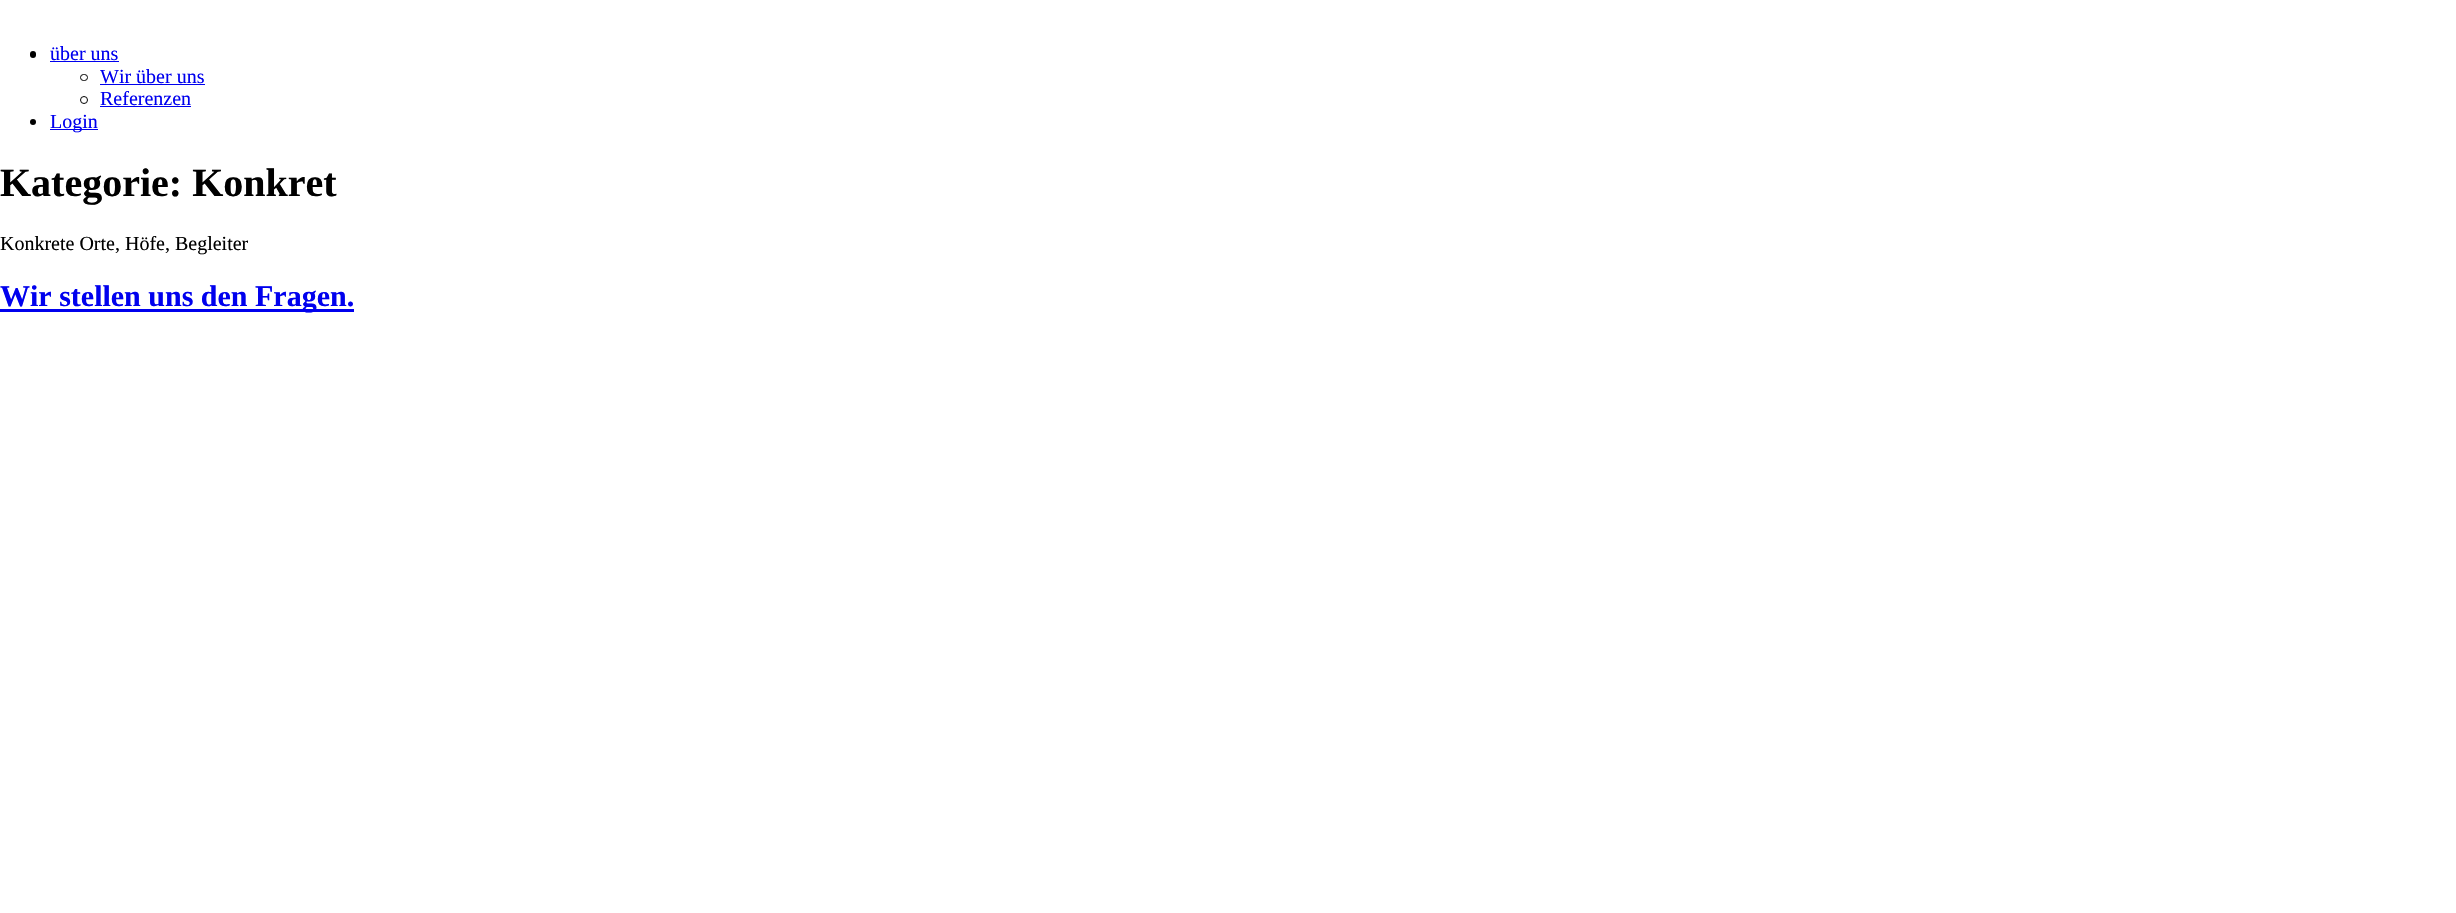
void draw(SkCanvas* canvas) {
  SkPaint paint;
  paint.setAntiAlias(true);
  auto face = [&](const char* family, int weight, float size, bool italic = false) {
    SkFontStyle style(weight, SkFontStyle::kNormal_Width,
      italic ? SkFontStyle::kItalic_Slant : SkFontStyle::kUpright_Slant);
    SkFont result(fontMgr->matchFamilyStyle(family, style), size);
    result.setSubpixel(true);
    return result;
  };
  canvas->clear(0xffffffff);
  paint.setColor(0xff000000);
  canvas->drawRoundRect(SkRect::MakeXYWH(30, 51, 6, 7), 3, 3, paint);
  paint.setColor(0xff0000ee);
  canvas->drawRect(SkRect::MakeXYWH(50, 61, 69, 1), paint);
  paint.setStroke(true);
  paint.setStrokeWidth(1);
  paint.setColor(0xff000000);
  canvas->drawRoundRect(SkRect::MakeXYWH(80.5f, 74.5f, 7, 6), 3, 3, paint);
  paint.setStroke(false);
  paint.setColor(0xff0000ee);
  canvas->drawRect(SkRect::MakeXYWH(100, 84, 105, 1), paint);
  paint.setStroke(true);
  paint.setColor(0xff000000);
  canvas->drawCircle(84, 100, 3.5f, paint);
  paint.setStroke(false);
  paint.setColor(0xff0000ee);
  canvas->drawRect(SkRect::MakeXYWH(100, 106, 91, 1), paint);
  paint.setColor(0xff000000);
  canvas->drawCircle(33, 122, 3, paint);
  paint.setColor(0xff0000ee);
  canvas->drawRect(SkRect::MakeXYWH(50, 129, 48, 1), paint);
  canvas->drawRect(SkRect::MakeXYWH(0, 309, 354, 3), paint);
  auto f0 = face("Liberation Serif", 400, 20);
  {
    const struct { const char* s; float x, y; } items[] = {
      {"über uns", 50, 60},
      {"Wir über uns", 100, 83},
      {"Referenzen", 100, 105},
      {"Login", 50, 128},
    };
    for (auto [s, x, y] : items) {
      canvas->drawString(s, x, y, f0, paint);
    }
  }
  auto f1 = face("Liberation Serif", 700, 40);
  paint.setColor(0xff000000);
  canvas->drawString("Kategorie: Konkret", 0, 196, f1, paint);
  canvas->drawString("Konkrete Orte, Höfe, Begleiter", 0, 250, f0, paint);
  auto f2 = face("Liberation Serif", 700, 30);
  paint.setColor(0xff0000ee);
  canvas->drawString("Wir stellen uns den Fragen.", 0, 306, f2, paint);
}
